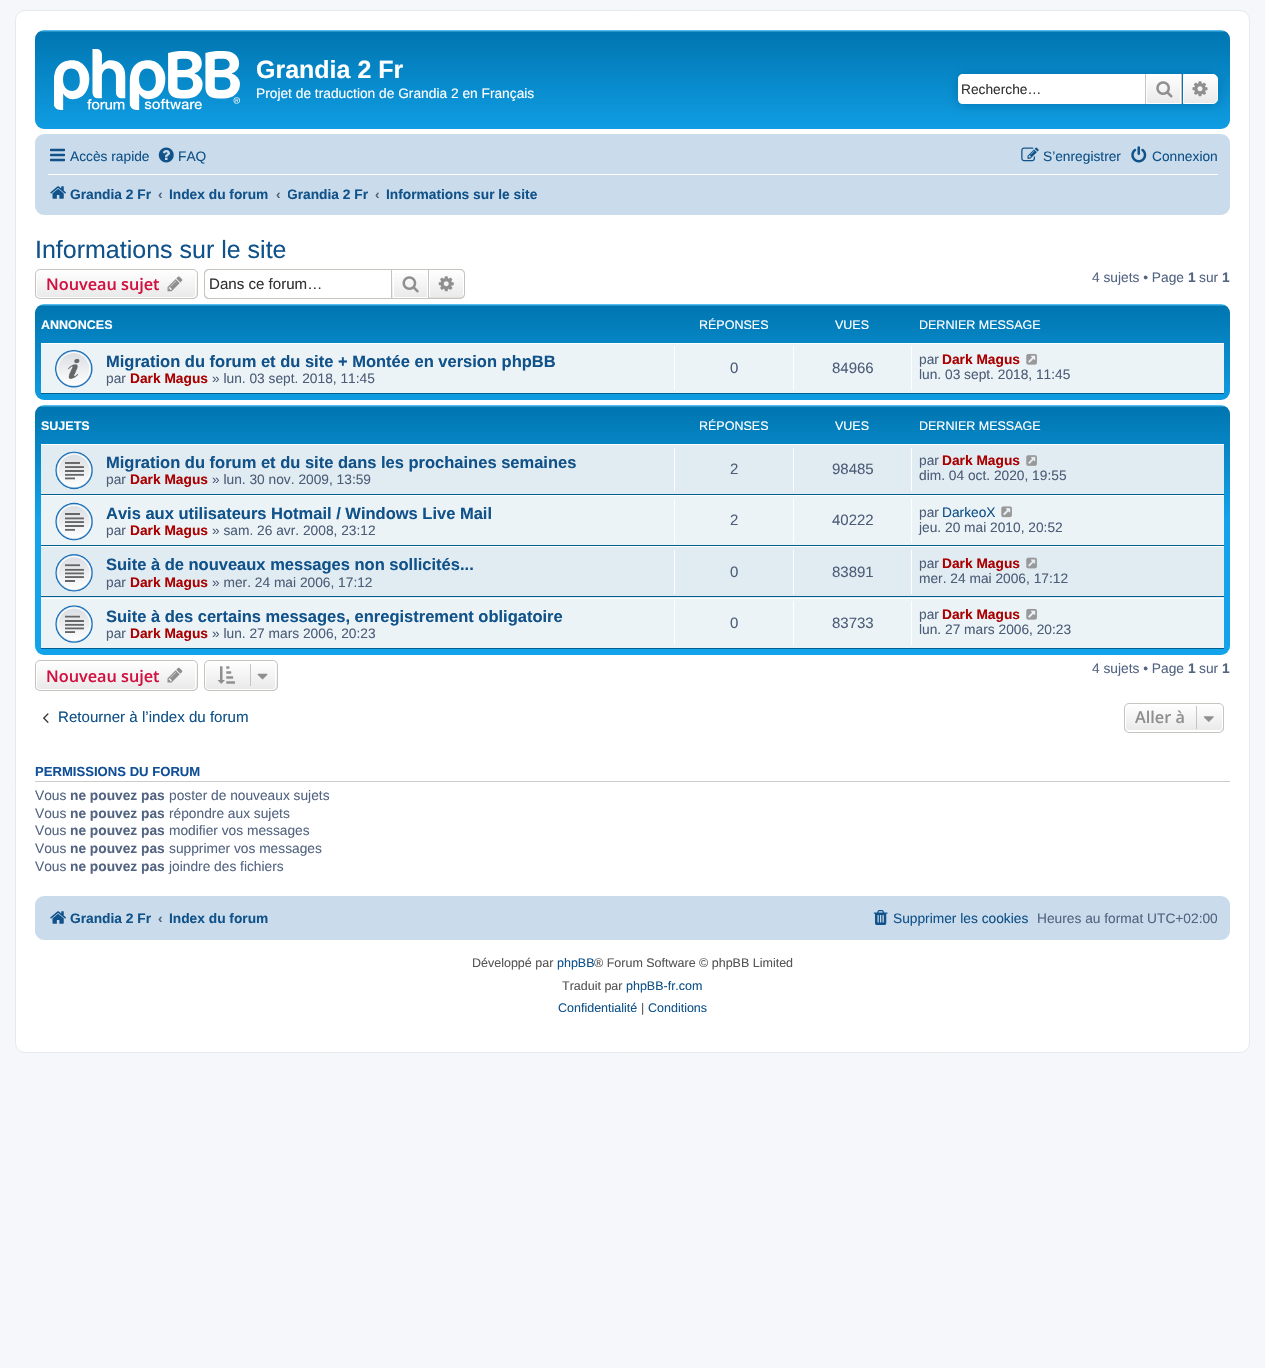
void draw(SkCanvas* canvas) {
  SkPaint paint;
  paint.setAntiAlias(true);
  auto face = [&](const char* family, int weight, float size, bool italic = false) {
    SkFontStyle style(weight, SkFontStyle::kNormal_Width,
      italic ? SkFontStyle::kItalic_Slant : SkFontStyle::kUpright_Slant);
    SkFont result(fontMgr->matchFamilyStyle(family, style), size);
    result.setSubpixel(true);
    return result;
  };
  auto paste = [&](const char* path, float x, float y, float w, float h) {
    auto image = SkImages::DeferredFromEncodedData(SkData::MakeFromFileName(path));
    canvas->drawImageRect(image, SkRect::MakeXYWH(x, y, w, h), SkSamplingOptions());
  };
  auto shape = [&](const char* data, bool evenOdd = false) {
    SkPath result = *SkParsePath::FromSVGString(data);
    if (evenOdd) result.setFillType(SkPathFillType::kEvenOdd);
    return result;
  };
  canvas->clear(0xfff5f7fa);
  paint.setColor(0xffffffff);
  canvas->drawRoundRect(SkRect::MakeXYWH(15.5f, 10.5f, 1234, 1042), 9.5f, 9.5f, paint);
  paint.setStroke(true);
  paint.setStrokeWidth(1);
  paint.setColor(0xffe6e9ed);
  canvas->drawRoundRect(SkRect::MakeXYWH(15.5f, 10.5f, 1234, 1042), 9.5f, 9.5f, paint);
  paint.setStroke(false);
  {
    const SkColor colors[] = {0xff6aceff, 0xff0076b1, 0xff12a3eb};
    const float stops[] = {0, 0.02f, 1};
    const SkPoint ends[] = {{633, 30}, {633, 145}};
    paint.setShader(SkGradientShader::MakeLinear(ends, colors, stops, 3, SkTileMode::kClamp));
    paint.setAlpha(255);
  }
  canvas->drawRoundRect(SkRect::MakeXYWH(35, 30, 1195, 99), 9, 9, paint);
  paste("img/1.png", 54, 49, 186, 61);
  paint.setShader(nullptr);
  paint.setColor(0xff0075b0);
  paint.setMaskFilter(SkMaskFilter::MakeBlur(kNormal_SkBlurStyle, 6));
  canvas->drawRoundRect(SkRect::MakeXYWH(958, 74, 260, 30), 5, 5, paint);
  paint.setMaskFilter(nullptr);
  paint.setColor(0xffffffff);
  canvas->drawPath(shape("M963 74H1145V104H963C960 104 958 102 958 99V79C958 76 960 74 963 74Z"), paint);
  {
    const SkColor colors[] = {0xffffffff, 0xffe9e9e9};
    const float stops[] = {0, 1};
    const SkPoint ends[] = {{1164, 74}, {1164, 104}};
    paint.setShader(SkGradientShader::MakeLinear(ends, colors, stops, 2, SkTileMode::kClamp));
    paint.setAlpha(255);
  }
  canvas->drawRect(SkRect::MakeXYWH(1147, 75, 33, 28), paint);
  paint.setStroke(true);
  paint.setShader(nullptr);
  paint.setColor(0xffffffff);
  canvas->drawRect(SkRect::MakeXYWH(1146.5f, 74.5f, 34, 29), paint);
  paint.setStroke(false);
  paint.setColor(0xffc7c3bf);
  canvas->drawRect(SkRect::MakeXYWH(1181, 74, 1, 30), paint);
  canvas->drawRect(SkRect::MakeXYWH(1145, 74, 1, 30), paint);
  paste("img/2.png", 1156, 81, 17, 17);
  {
    const SkColor colors[] = {0xffffffff, 0xffe9e9e9};
    const float stops[] = {0, 1};
    const SkPoint ends[] = {{1200, 74}, {1200, 104}};
    paint.setShader(SkGradientShader::MakeLinear(ends, colors, stops, 2, SkTileMode::kClamp));
    paint.setAlpha(255);
  }
  canvas->drawPath(shape("M1183.5 74.5H1213C1215.5 74.5 1217.5 76.5 1217.5 79V99C1217.5 101.5 1215.5 103.5 1213 103.5H1183.5Z"), paint);
  paint.setStroke(true);
  paint.setShader(nullptr);
  paint.setColor(0xffffffff);
  canvas->drawPath(shape("M1183.5 74.5H1213C1215.5 74.5 1217.5 76.5 1217.5 79V99C1217.5 101.5 1215.5 103.5 1213 103.5H1183.5Z"), paint);
  paste("img/3.png", 1192, 81, 16, 16);
  paint.setStroke(false);
  paint.setColor(0xffcadceb);
  canvas->drawRoundRect(SkRect::MakeXYWH(35, 134, 1195, 81), 9, 9, paint);
  paste("img/4.png", 50, 148, 15, 14);
  paste("img/5.png", 158, 147, 16, 16);
  paste("img/6.png", 1021, 147, 18, 15);
  paste("img/7.png", 1131, 146, 16, 17);
  paint.setColor(0xffffffff);
  canvas->drawRect(SkRect::MakeXYWH(48, 174, 1170, 1), paint);
  paste("img/8.png", 50, 186, 16, 13);
  canvas->save();
  canvas->clipPath(shape("M40 269H193C196 269 198 271 198 274V294C198 297 196 299 193 299H40C37 299 35 297 35 294V274C35 271 37 269 40 269Z"), true);
  {
    const SkColor colors[] = {0xffffffff, 0xffe9e9e9};
    const float stops[] = {0, 1};
    const SkPoint ends[] = {{116, 270}, {116, 298}};
    paint.setShader(SkGradientShader::MakeLinear(ends, colors, stops, 2, SkTileMode::kClamp));
    paint.setAlpha(255);
  }
  canvas->drawRect(SkRect::MakeXYWH(35, 270, 163, 28), paint);
  canvas->restore();
  paint.setStroke(true);
  paint.setShader(nullptr);
  paint.setColor(0xffffffff);
  canvas->drawRoundRect(SkRect::MakeXYWH(36.5f, 270.5f, 159, 27), 3.5f, 3.5f, paint);
  paint.setColor(0xffc7c3bf);
  canvas->drawRoundRect(SkRect::MakeXYWH(35.5f, 269.5f, 162, 29), 4.5f, 4.5f, paint);
  paste("img/9.png", 167, 276, 16, 16);
  paint.setStroke(false);
  canvas->drawPath(shape("M209 269H391V299H209C206 299 204 297 204 294V274C204 271 206 269 209 269ZM209 270H391V298H209C207 298 205 296 205 294V274C205 272 207 270 209 270Z", true), paint);
  {
    const SkColor colors[] = {0xffffffff, 0xffe9e9e9};
    const float stops[] = {0, 1};
    const SkPoint ends[] = {{410, 270}, {410, 298}};
    paint.setShader(SkGradientShader::MakeLinear(ends, colors, stops, 2, SkTileMode::kClamp));
    paint.setAlpha(255);
  }
  canvas->drawRect(SkRect::MakeXYWH(392, 273, 35, 25), paint);
  paint.setStroke(true);
  paint.setShader(nullptr);
  paint.setColor(0xffffffff);
  canvas->drawRect(SkRect::MakeXYWH(393.5f, 270.5f, 34, 27), paint);
  paint.setColor(0xffc7c3bf);
  canvas->drawRect(SkRect::MakeXYWH(391.5f, 269.5f, 37, 29), paint);
  paste("img/10.png", 402, 276, 17, 17);
  paint.setStroke(false);
  {
    const SkColor colors[] = {0xffffffff, 0xffe9e9e9};
    const float stops[] = {0, 1};
    const SkPoint ends[] = {{446, 270}, {446, 298}};
    paint.setShader(SkGradientShader::MakeLinear(ends, colors, stops, 2, SkTileMode::kClamp));
    paint.setAlpha(255);
  }
  canvas->drawPath(shape("M429.5 270.5H460C462 270.5 463.5 272 463.5 274V294C463.5 296 462 297.5 460 297.5H429.5Z"), paint);
  paint.setStroke(true);
  paint.setShader(nullptr);
  paint.setColor(0xffffffff);
  canvas->drawPath(shape("M429.5 270.5H460C462 270.5 463.5 272 463.5 274V294C463.5 296 462 297.5 460 297.5H429.5Z"), paint);
  paint.setStroke(false);
  paint.setColor(0xffc7c3bf);
  canvas->drawPath(shape("M429 269H460C463 269 465 271 465 274V294C465 296.5 463 299 460 299H429ZM429 270H460C462 270 464 271.5 464 274V294C464 296 462 297.5 460 297.5H429Z", true), paint);
  paste("img/11.png", 438, 276, 16, 16);
  {
    const SkColor colors[] = {0xff6aceff, 0xff0076b1, 0xff12a3eb};
    const float stops[] = {0, 0.02f, 1};
    const SkPoint ends[] = {{633, 304}, {633, 419}};
    paint.setShader(SkGradientShader::MakeLinear(ends, colors, stops, 3, SkTileMode::kClamp));
    paint.setAlpha(255);
  }
  canvas->drawRoundRect(SkRect::MakeXYWH(35, 304, 1195, 96), 9, 9, paint);
  paint.setShader(nullptr);
  {
    const struct { float x, y, w, h; SkColor color; } items[] = {
      {41, 344, 1183, 49, 0xffecf3f7},
      {41, 343, 1183, 1, 0xffffffff},
      {41, 393, 1183, 1, 0xff00608f},
    };
    for (auto [x, y, w, h, color] : items) {
      paint.setColor(color);
      canvas->drawRect(SkRect::MakeXYWH(x, y, w, h), paint);
    }
  }
  paste("img/12.png", 55, 350, 38, 38);
  {
    const struct { float x, y, w, h; SkColor color; } items[] = {
      {674, 346, 1, 44, 0xffffffff},
      {793, 346, 1, 44, 0xffffffff},
      {911, 346, 1, 44, 0xffffffff},
    };
    for (auto [x, y, w, h, color] : items) {
      paint.setColor(color);
      canvas->drawRect(SkRect::MakeXYWH(x, y, w, h), paint);
    }
  }
  paste("img/13.png", 1026, 353, 11, 12);
  {
    const SkColor colors[] = {0xff6aceff, 0xff0076b1, 0xff12a3eb, 0xff12a3eb};
    const float stops[] = {0, 0.01f, 0.46f, 1};
    const SkPoint ends[] = {{633, 405}, {633, 655}};
    paint.setShader(SkGradientShader::MakeLinear(ends, colors, stops, 4, SkTileMode::kClamp));
    paint.setAlpha(255);
  }
  canvas->drawRoundRect(SkRect::MakeXYWH(35, 405, 1195, 250), 9, 9, paint);
  paint.setShader(nullptr);
  {
    const struct { float x, y, w, h; SkColor color; } items[] = {
      {41, 445, 1183, 49, 0xffe1ebf2},
      {41, 444, 1183, 1, 0xffffffff},
      {41, 494, 1183, 1, 0xff00608f},
    };
    for (auto [x, y, w, h, color] : items) {
      paint.setColor(color);
      canvas->drawRect(SkRect::MakeXYWH(x, y, w, h), paint);
    }
  }
  paste("img/14.png", 55, 451, 38, 39);
  {
    const struct { float x, y, w, h; SkColor color; } items[] = {
      {674, 448, 1, 43, 0xffffffff},
      {793, 448, 1, 43, 0xffffffff},
      {911, 448, 1, 43, 0xffffffff},
    };
    for (auto [x, y, w, h, color] : items) {
      paint.setColor(color);
      canvas->drawRect(SkRect::MakeXYWH(x, y, w, h), paint);
    }
  }
  paste("img/15.png", 1026, 455, 11, 11);
  {
    const struct { float x, y, w, h; SkColor color; } items[] = {
      {41, 496, 1183, 49, 0xffecf3f7},
      {41, 495, 1183, 1, 0xffffffff},
      {41, 545, 1183, 1, 0xff00608f},
    };
    for (auto [x, y, w, h, color] : items) {
      paint.setColor(color);
      canvas->drawRect(SkRect::MakeXYWH(x, y, w, h), paint);
    }
  }
  paste("img/16.png", 55, 502, 38, 39);
  {
    const struct { float x, y, w, h; SkColor color; } items[] = {
      {674, 499, 1, 44, 0xffffffff},
      {793, 499, 1, 44, 0xffffffff},
      {911, 499, 1, 44, 0xffffffff},
    };
    for (auto [x, y, w, h, color] : items) {
      paint.setColor(color);
      canvas->drawRect(SkRect::MakeXYWH(x, y, w, h), paint);
    }
  }
  paste("img/17.png", 1001, 506, 11, 12);
  {
    const struct { float x, y, w, h; SkColor color; } items[] = {
      {41, 547, 1183, 51, 0xffe1ebf2},
      {41, 546, 1183, 1, 0xffffffff},
      {41, 596, 1183, 1, 0xff00608f},
    };
    for (auto [x, y, w, h, color] : items) {
      paint.setColor(color);
      canvas->drawRect(SkRect::MakeXYWH(x, y, w, h), paint);
    }
  }
  paste("img/18.png", 55, 553, 38, 39);
  {
    const struct { float x, y, w, h; SkColor color; } items[] = {
      {674, 550, 1, 44, 0xffffffff},
      {793, 550, 1, 44, 0xffffffff},
      {911, 550, 1, 44, 0xffffffff},
    };
    for (auto [x, y, w, h, color] : items) {
      paint.setColor(color);
      canvas->drawRect(SkRect::MakeXYWH(x, y, w, h), paint);
    }
  }
  paste("img/19.png", 1026, 557, 11, 12);
  {
    const struct { float x, y, w, h; SkColor color; } items[] = {
      {41, 599, 1183, 49, 0xffecf3f7},
      {41, 598, 1183, 1, 0xffffffff},
      {41, 648, 1183, 1, 0xff00608f},
    };
    for (auto [x, y, w, h, color] : items) {
      paint.setColor(color);
      canvas->drawRect(SkRect::MakeXYWH(x, y, w, h), paint);
    }
  }
  paste("img/20.png", 55, 605, 38, 38);
  {
    const struct { float x, y, w, h; SkColor color; } items[] = {
      {674, 601, 1, 44, 0xffffffff},
      {793, 601, 1, 44, 0xffffffff},
      {911, 601, 1, 44, 0xffffffff},
    };
    for (auto [x, y, w, h, color] : items) {
      paint.setColor(color);
      canvas->drawRect(SkRect::MakeXYWH(x, y, w, h), paint);
    }
  }
  paste("img/13.png", 1026, 608, 11, 12);
  canvas->save();
  canvas->clipPath(shape("M40 660H193C196 660 198 662 198 665V686C198 689 196 691 193 691H40C37 691 35 689 35 686V665C35 662 37 660 40 660Z"), true);
  {
    const SkColor colors[] = {0xffffffff, 0xffe9e9e9};
    const float stops[] = {0, 1};
    const SkPoint ends[] = {{116, 661}, {116, 690}};
    paint.setShader(SkGradientShader::MakeLinear(ends, colors, stops, 2, SkTileMode::kClamp));
    paint.setAlpha(255);
  }
  canvas->drawRect(SkRect::MakeXYWH(35, 661, 163, 29), paint);
  canvas->restore();
  paint.setStroke(true);
  paint.setShader(nullptr);
  paint.setColor(0xffffffff);
  canvas->drawRoundRect(SkRect::MakeXYWH(36.5f, 661.5f, 159, 28), 3.5f, 3.5f, paint);
  paint.setColor(0xffc7c3bf);
  canvas->drawRoundRect(SkRect::MakeXYWH(35.5f, 660.5f, 162, 30), 4.5f, 4.5f, paint);
  paste("img/21.png", 167, 667, 16, 16);
  canvas->save();
  canvas->clipPath(shape("M209 660H273C276 660 278 662 278 665V686C278 689 276 691 273 691H209C206 691 204 689 204 686V665C204 662 206 660 209 660Z"), true);
  paint.setStroke(false);
  {
    const SkColor colors[] = {0xffffffff, 0xffe9e9e9};
    const float stops[] = {0, 1};
    const SkPoint ends[] = {{241, 661}, {241, 690}};
    paint.setShader(SkGradientShader::MakeLinear(ends, colors, stops, 2, SkTileMode::kClamp));
    paint.setAlpha(255);
  }
  canvas->drawRect(SkRect::MakeXYWH(204, 661, 74, 29), paint);
  canvas->restore();
  paint.setStroke(true);
  paint.setShader(nullptr);
  paint.setColor(0xffffffff);
  canvas->drawRoundRect(SkRect::MakeXYWH(205.5f, 661.5f, 70, 28), 3.5f, 3.5f, paint);
  paint.setColor(0xffc7c3bf);
  canvas->drawRoundRect(SkRect::MakeXYWH(204.5f, 660.5f, 73, 30), 4.5f, 4.5f, paint);
  paste("img/22.png", 217, 666, 18, 18);
  paint.setStroke(false);
  canvas->drawRect(SkRect::MakeXYWH(250, 664, 1, 22), paint);
  paste("img/23.png", 257, 673, 11, 7);
  paste("img/24.png", 43, 713, 6, 10);
  canvas->save();
  canvas->clipPath(shape("M1129 703H1219C1222 703 1224 705 1224 708V728C1224 731 1222 733 1219 733H1129C1126 733 1124 731 1124 728V708C1124 705 1126 703 1129 703Z"), true);
  {
    const SkColor colors[] = {0xffffffff, 0xffe9e9e9};
    const float stops[] = {0, 1};
    const SkPoint ends[] = {{1174, 704}, {1174, 731}};
    paint.setShader(SkGradientShader::MakeLinear(ends, colors, stops, 2, SkTileMode::kClamp));
    paint.setAlpha(255);
  }
  canvas->drawRect(SkRect::MakeXYWH(1124, 704, 100, 27), paint);
  canvas->restore();
  paint.setStroke(true);
  paint.setShader(nullptr);
  paint.setColor(0xffffffff);
  canvas->drawRoundRect(SkRect::MakeXYWH(1125.5f, 704.5f, 97, 26), 3.5f, 3.5f, paint);
  paint.setColor(0xffc7c3bf);
  canvas->drawRoundRect(SkRect::MakeXYWH(1124.5f, 703.5f, 99, 29), 4.5f, 4.5f, paint);
  paint.setStroke(false);
  canvas->drawRect(SkRect::MakeXYWH(1196, 706, 1, 23), paint);
  paste("img/25.png", 1203, 716, 11, 6);
  paint.setColor(0xffcccccc);
  canvas->drawRect(SkRect::MakeXYWH(35, 781, 1195, 1), paint);
  paint.setColor(0xffcadceb);
  canvas->drawRoundRect(SkRect::MakeXYWH(35, 896, 1195, 44), 9, 9, paint);
  paste("img/8.png", 50, 911, 16, 13);
  paste("img/26.png", 873, 910, 15, 15);
  auto f0 = face("Liberation Sans", 700, 25);
  paint.setColor(0xffffffff);
  canvas->drawString("Grandia 2 Fr", 256, 78, f0, paint);
  auto f1 = face("Liberation Sans", 400, 13.75f);
  canvas->drawString("Projet de traduction de Grandia 2 en Français", 256, 98, f1, paint);
  paint.setColor(0xff333333);
  canvas->drawString("Recherche…", 961, 94, f1, paint);
  paint.setColor(0xff105289);
  {
    const struct { const char* s; float x, y; } items[] = {
      {"Accès rapide", 70, 161},
      {"FAQ", 178, 161},
      {"S’enregistrer", 1043, 161},
      {"Connexion", 1152, 161},
    };
    for (auto [s, x, y] : items) {
      canvas->drawString(s, x, y, f1, paint);
    }
  }
  auto f2 = face("Liberation Sans", 700, 13.75f);
  canvas->drawString("Grandia 2 Fr", 70, 199, f2, paint);
  paint.setColor(0xff536482);
  canvas->drawString("‹", 158, 199, f2, paint);
  paint.setColor(0xff105289);
  canvas->drawString("Index du forum", 169, 199, f2, paint);
  paint.setColor(0xff536482);
  canvas->drawString("‹", 276, 199, f2, paint);
  canvas->save();
  canvas->clipRect(SkRect::MakeXYWH(288, 179, 80, 30));
  paint.setColor(0xff105289);
  canvas->drawString("Grandia 2 Fr", 287, 199, f2, paint);
  canvas->restore();
  paint.setColor(0xff536482);
  canvas->drawString("‹", 375, 199, f2, paint);
  paint.setColor(0xff105289);
  canvas->drawString("Informations sur le site", 386, 199, f2, paint);
  auto f3 = face("Liberation Sans", 400, 25);
  canvas->drawString("Informations sur le site", 35, 258, f3, paint);
  auto f4 = face("Open Sans", 600, 16.25f);
  paint.setColor(0xffd31141);
  canvas->drawString("Nouveau sujet", 46, 290, f4, paint);
  auto f5 = face("Liberation Sans", 400, 15.1f);
  paint.setColor(0xff333333);
  canvas->drawString("Dans ce forum…", 209, 289, f5, paint);
  paint.setColor(0xff536482);
  canvas->drawString("4 sujets • Page", 1092, 282, f1, paint);
  canvas->drawString("1", 1188, 282, f2, paint);
  canvas->drawString("sur", 1199, 282, f1, paint);
  canvas->drawString("1", 1222, 282, f2, paint);
  auto f6 = face("Liberation Sans", 700, 12.5f);
  paint.setColor(0xffffffff);
  canvas->drawString("ANNONCES", 41, 329, f6, paint);
  auto f7 = face("Liberation Sans", 400, 12.5f);
  {
    const struct { const char* s; float x, y; } items[] = {
      {"RÉPONSES", 699, 329},
      {"VUES", 835, 329},
      {"DERNIER MESSAGE", 919, 329},
    };
    for (auto [s, x, y] : items) {
      canvas->drawString(s, x, y, f7, paint);
    }
  }
  auto f8 = face("Liberation Sans", 700, 16.5f);
  paint.setColor(0xff105289);
  canvas->drawString("Migration du forum et du site + Montée en version phpBB", 106, 367, f8, paint);
  paint.setColor(0xff4c5d77);
  canvas->drawString("par", 106, 383, f1, paint);
  paint.setColor(0xffaa0000);
  canvas->drawString("Dark Magus", 130, 383, f2, paint);
  paint.setColor(0xff4c5d77);
  canvas->drawString("» lun. 03 sept. 2018, 11:45", 212, 383, f1, paint);
  auto f9 = face("Liberation Sans", 400, 15);
  canvas->drawString("0", 730, 373, f9, paint);
  canvas->drawString("84966", 832, 373, f9, paint);
  canvas->drawString("par", 919, 364, f1, paint);
  paint.setColor(0xffaa0000);
  canvas->drawString("Dark Magus", 942, 364, f2, paint);
  paint.setColor(0xff4c5d77);
  canvas->drawString("lun. 03 sept. 2018, 11:45", 919, 379, f1, paint);
  paint.setColor(0xffffffff);
  canvas->drawString("SUJETS", 41, 430, f6, paint);
  {
    const struct { const char* s; float x, y; } items[] = {
      {"RÉPONSES", 699, 430},
      {"VUES", 835, 430},
      {"DERNIER MESSAGE", 919, 430},
    };
    for (auto [s, x, y] : items) {
      canvas->drawString(s, x, y, f7, paint);
    }
  }
  paint.setColor(0xff105289);
  canvas->drawString("Migration du forum et du site dans les prochaines semaines", 106, 468, f8, paint);
  paint.setColor(0xff4c5d77);
  canvas->drawString("par", 106, 484, f1, paint);
  paint.setColor(0xffaa0000);
  canvas->drawString("Dark Magus", 130, 484, f2, paint);
  paint.setColor(0xff4c5d77);
  canvas->drawString("» lun. 30 nov. 2009, 13:59", 212, 484, f1, paint);
  canvas->drawString("2", 730, 474, f9, paint);
  canvas->drawString("98485", 832, 474, f9, paint);
  canvas->drawString("par", 919, 465, f1, paint);
  paint.setColor(0xffaa0000);
  canvas->drawString("Dark Magus", 942, 465, f2, paint);
  paint.setColor(0xff4c5d77);
  canvas->drawString("dim. 04 oct. 2020, 19:55", 919, 480, f1, paint);
  paint.setColor(0xff105289);
  canvas->drawString("Avis aux utilisateurs Hotmail / Windows Live Mail", 106, 519, f8, paint);
  paint.setColor(0xff4c5d77);
  canvas->drawString("par", 106, 535, f1, paint);
  paint.setColor(0xffaa0000);
  canvas->drawString("Dark Magus", 130, 535, f2, paint);
  paint.setColor(0xff4c5d77);
  canvas->drawString("» sam. 26 avr. 2008, 23:12", 212, 535, f1, paint);
  canvas->drawString("2", 730, 525, f9, paint);
  canvas->drawString("40222", 832, 525, f9, paint);
  canvas->drawString("par", 919, 517, f1, paint);
  paint.setColor(0xff105289);
  canvas->drawString("DarkeoX", 942, 517, f1, paint);
  paint.setColor(0xff4c5d77);
  canvas->drawString("jeu. 20 mai 2010, 20:52", 919, 532, f1, paint);
  paint.setColor(0xff105289);
  canvas->drawString("Suite à de nouveaux messages non sollicités...", 106, 570, f8, paint);
  paint.setColor(0xff4c5d77);
  canvas->drawString("par", 106, 587, f1, paint);
  paint.setColor(0xffaa0000);
  canvas->drawString("Dark Magus", 130, 587, f2, paint);
  paint.setColor(0xff4c5d77);
  canvas->drawString("» mer. 24 mai 2006, 17:12", 212, 587, f1, paint);
  canvas->drawString("0", 730, 577, f9, paint);
  canvas->drawString("83891", 832, 577, f9, paint);
  canvas->drawString("par", 919, 568, f1, paint);
  paint.setColor(0xffaa0000);
  canvas->drawString("Dark Magus", 942, 568, f2, paint);
  paint.setColor(0xff4c5d77);
  canvas->drawString("mer. 24 mai 2006, 17:12", 919, 583, f1, paint);
  paint.setColor(0xff105289);
  canvas->drawString("Suite à des certains messages, enregistrement obligatoire", 106, 622, f8, paint);
  paint.setColor(0xff4c5d77);
  canvas->drawString("par", 106, 638, f1, paint);
  paint.setColor(0xffaa0000);
  canvas->drawString("Dark Magus", 130, 638, f2, paint);
  paint.setColor(0xff4c5d77);
  canvas->drawString("» lun. 27 mars 2006, 20:23", 212, 638, f1, paint);
  canvas->drawString("0", 730, 628, f9, paint);
  canvas->drawString("83733", 832, 628, f9, paint);
  canvas->drawString("par", 919, 619, f1, paint);
  paint.setColor(0xffaa0000);
  canvas->drawString("Dark Magus", 942, 619, f2, paint);
  paint.setColor(0xff4c5d77);
  canvas->drawString("lun. 27 mars 2006, 20:23", 919, 634, f1, paint);
  paint.setColor(0xffd31141);
  canvas->drawString("Nouveau sujet", 46, 682, f4, paint);
  paint.setColor(0xff536482);
  canvas->drawString("4 sujets • Page", 1092, 673, f1, paint);
  canvas->drawString("1", 1188, 673, f2, paint);
  canvas->drawString("sur", 1199, 673, f1, paint);
  canvas->drawString("1", 1222, 673, f2, paint);
  paint.setColor(0xff105289);
  canvas->drawString("Retourner à l’index du forum", 58, 722, f5, paint);
  paint.setColor(0xff8f8f8f);
  canvas->drawString("Aller à", 1135, 723, f4, paint);
  auto f10 = face("Liberation Sans", 700, 13.1f);
  paint.setColor(0xff115098);
  canvas->drawString("PERMISSIONS DU FORUM", 35, 776, f10, paint);
  paint.setColor(0xff536482);
  canvas->drawString("Vous", 35, 800, f1, paint);
  canvas->drawString("ne pouvez pas", 70, 800, f2, paint);
  canvas->drawString("poster de nouveaux sujets", 169, 800, f1, paint);
  canvas->drawString("Vous", 35, 818, f1, paint);
  canvas->drawString("ne pouvez pas", 70, 818, f2, paint);
  canvas->drawString("répondre aux sujets", 169, 818, f1, paint);
  canvas->drawString("Vous", 35, 835, f1, paint);
  canvas->drawString("ne pouvez pas", 70, 835, f2, paint);
  canvas->drawString("modifier vos messages", 169, 835, f1, paint);
  canvas->drawString("Vous", 35, 853, f1, paint);
  canvas->drawString("ne pouvez pas", 70, 853, f2, paint);
  canvas->drawString("supprimer vos messages", 169, 853, f1, paint);
  canvas->drawString("Vous", 35, 871, f1, paint);
  canvas->drawString("ne pouvez pas", 70, 871, f2, paint);
  canvas->drawString("joindre des fichiers", 169, 871, f1, paint);
  paint.setColor(0xff105289);
  canvas->drawString("Grandia 2 Fr", 70, 923, f2, paint);
  paint.setColor(0xff536482);
  canvas->drawString("‹", 158, 923, f2, paint);
  paint.setColor(0xff105289);
  canvas->drawString("Index du forum", 169, 923, f2, paint);
  canvas->drawString("Supprimer les cookies", 893, 923, f1, paint);
  paint.setColor(0xff536482);
  canvas->drawString("Heures au format UTC+02:00", 1037, 923, f1, paint);
  paint.setColor(0xff555555);
  canvas->drawString("Développé par", 472, 967, f7, paint);
  paint.setColor(0xff105289);
  canvas->drawString("phpBB", 557, 967, f7, paint);
  paint.setColor(0xff555555);
  canvas->drawString("® Forum Software © phpBB Limited", 594, 967, f7, paint);
  canvas->drawString("Traduit par", 562, 990, f7, paint);
  paint.setColor(0xff105289);
  canvas->drawString("phpBB-fr.com", 626, 990, f7, paint);
  canvas->drawString("Confidentialité", 558, 1012, f7, paint);
  paint.setColor(0xff555555);
  canvas->drawString("|", 641, 1012, f7, paint);
  paint.setColor(0xff105289);
  canvas->drawString("Conditions", 648, 1012, f7, paint);
}
